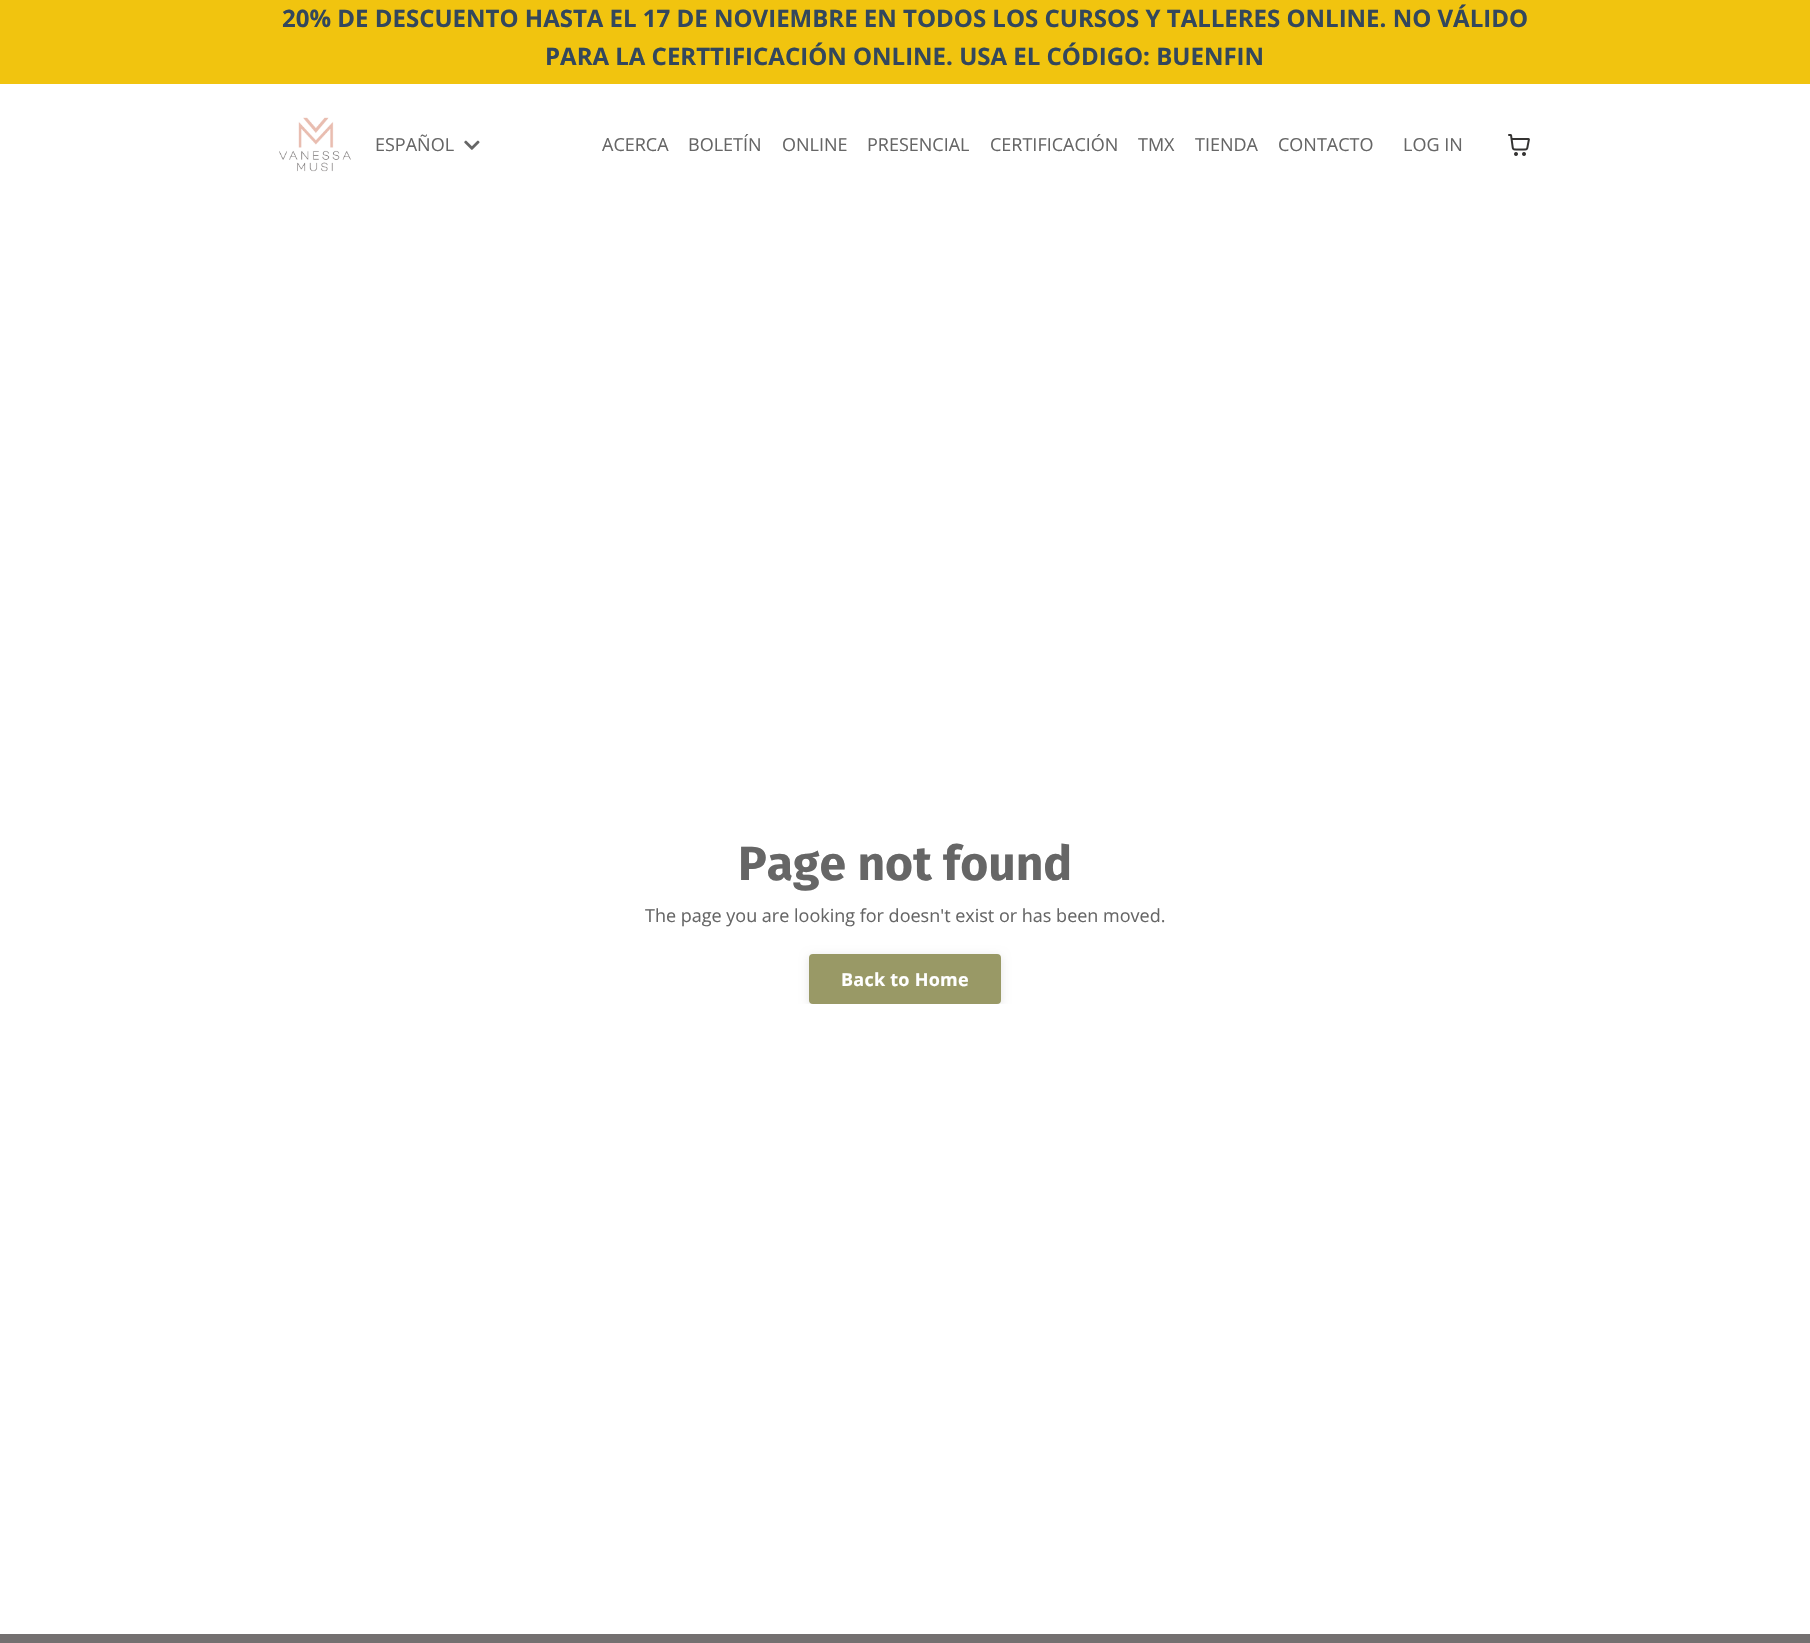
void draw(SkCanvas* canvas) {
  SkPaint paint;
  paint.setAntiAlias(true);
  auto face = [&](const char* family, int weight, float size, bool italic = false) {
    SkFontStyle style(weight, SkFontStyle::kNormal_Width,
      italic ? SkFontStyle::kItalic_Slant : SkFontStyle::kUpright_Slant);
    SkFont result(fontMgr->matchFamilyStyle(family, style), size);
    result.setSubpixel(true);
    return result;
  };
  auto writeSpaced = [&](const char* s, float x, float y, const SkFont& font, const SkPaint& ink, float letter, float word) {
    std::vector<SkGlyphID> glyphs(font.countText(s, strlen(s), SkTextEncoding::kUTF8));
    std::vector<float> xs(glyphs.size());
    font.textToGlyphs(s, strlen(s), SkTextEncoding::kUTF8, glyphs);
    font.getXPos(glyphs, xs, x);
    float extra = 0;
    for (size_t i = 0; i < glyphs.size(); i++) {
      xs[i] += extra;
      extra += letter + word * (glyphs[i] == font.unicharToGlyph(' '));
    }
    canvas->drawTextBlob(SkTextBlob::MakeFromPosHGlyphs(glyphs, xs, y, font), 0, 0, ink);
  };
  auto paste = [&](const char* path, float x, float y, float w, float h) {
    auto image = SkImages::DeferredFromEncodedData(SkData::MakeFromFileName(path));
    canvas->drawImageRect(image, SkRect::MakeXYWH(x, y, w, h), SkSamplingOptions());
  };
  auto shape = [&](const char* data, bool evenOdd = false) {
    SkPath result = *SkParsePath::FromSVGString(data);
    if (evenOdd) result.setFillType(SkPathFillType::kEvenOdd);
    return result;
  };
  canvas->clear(0xffffffff);
  paint.setColor(0xfff1c40f);
  canvas->drawRect(SkRect::MakeXYWH(0, 0, 1810, 84), paint);
  paste("img/1.png", 279, 117, 72, 55);
  paste("img/2.png", 464, 140, 16, 10);
  paste("img/3.png", 1508, 134, 22, 22);
  canvas->save();
  canvas->clipPath(shape("M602 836H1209C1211 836 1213 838 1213 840V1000C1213 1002 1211 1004 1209 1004H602C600 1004 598 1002 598 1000V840C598 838 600 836 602 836Z"), true);
  paint.setColor(0x1a000000);
  paint.setMaskFilter(SkMaskFilter::MakeBlur(kNormal_SkBlurStyle, 5));
  canvas->drawRoundRect(SkRect::MakeXYWH(809, 956, 192, 50), 4, 4, paint);
  paint.setMaskFilter(nullptr);
  canvas->restore();
  paint.setColor(0xff999966);
  canvas->drawRoundRect(SkRect::MakeXYWH(810, 955, 190, 48), 3, 3, paint);
  paint.setStroke(true);
  paint.setStrokeWidth(2);
  canvas->drawRoundRect(SkRect::MakeXYWH(810, 955, 190, 48), 3, 3, paint);
  paint.setStroke(false);
  paint.setColor(0xff747070);
  canvas->drawRect(SkRect::MakeXYWH(0, 1634, 1810, 9), paint);
  auto f0 = face("Open Sans", 700, 24);
  paint.setColor(0xff33475c);
  canvas->drawString("20% DE DESCUENTO HASTA EL 17 DE NOVIEMBRE EN TODOS LOS CURSOS Y TALLERES ONLINE. NO VÁLIDO", 282, 27, f0, paint);
  canvas->drawString("PARA LA CERTTIFICACIÓN ONLINE. USA EL CÓDIGO: BUENFIN", 545, 65, f0, paint);
  auto f1 = face("Open Sans", 400, 18);
  paint.setColor(0xff666666);
  {
    const struct { const char* s; float x, y; } items[] = {
      {"ESPAÑOL", 375, 151},
      {"ACERCA", 602, 151},
      {"BOLETÍN", 688, 151},
      {"ONLINE", 782, 151},
      {"PRESENCIAL", 867, 151},
      {"CERTIFICACIÓN", 990, 151},
      {"TMX", 1138, 151},
      {"TIENDA", 1195, 151},
      {"CONTACTO", 1278, 151},
      {"LOG IN", 1403, 151},
    };
    for (auto [s, x, y] : items) {
      canvas->drawString(s, x, y, f1, paint);
    }
  }
  auto f2 = face("Fira Sans", 700, 48);
  canvas->drawString("Page not found", 738, 880, f2, paint);
  canvas->drawString("The page you are looking for doesn't exist or has been moved.", 645, 922, f1, paint);
  auto f3 = face("Open Sans", 700, 18);
  paint.setColor(0xffffffff);
  writeSpaced("Back to Home", 841, 986, f3, paint, 0.25f, 0);
}
